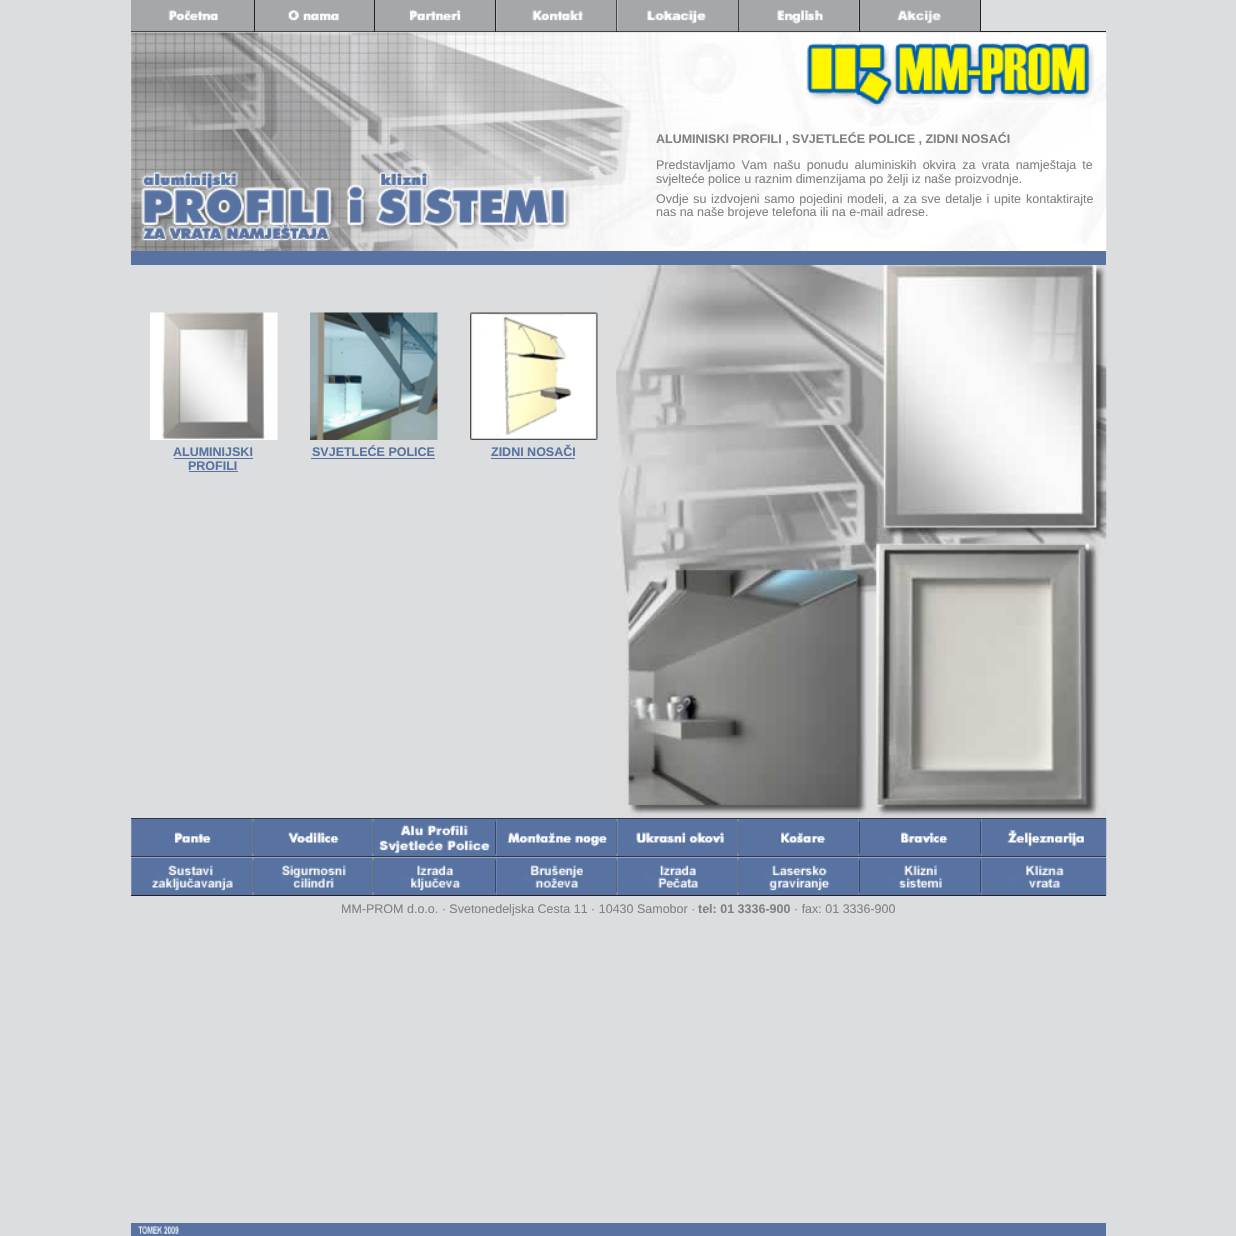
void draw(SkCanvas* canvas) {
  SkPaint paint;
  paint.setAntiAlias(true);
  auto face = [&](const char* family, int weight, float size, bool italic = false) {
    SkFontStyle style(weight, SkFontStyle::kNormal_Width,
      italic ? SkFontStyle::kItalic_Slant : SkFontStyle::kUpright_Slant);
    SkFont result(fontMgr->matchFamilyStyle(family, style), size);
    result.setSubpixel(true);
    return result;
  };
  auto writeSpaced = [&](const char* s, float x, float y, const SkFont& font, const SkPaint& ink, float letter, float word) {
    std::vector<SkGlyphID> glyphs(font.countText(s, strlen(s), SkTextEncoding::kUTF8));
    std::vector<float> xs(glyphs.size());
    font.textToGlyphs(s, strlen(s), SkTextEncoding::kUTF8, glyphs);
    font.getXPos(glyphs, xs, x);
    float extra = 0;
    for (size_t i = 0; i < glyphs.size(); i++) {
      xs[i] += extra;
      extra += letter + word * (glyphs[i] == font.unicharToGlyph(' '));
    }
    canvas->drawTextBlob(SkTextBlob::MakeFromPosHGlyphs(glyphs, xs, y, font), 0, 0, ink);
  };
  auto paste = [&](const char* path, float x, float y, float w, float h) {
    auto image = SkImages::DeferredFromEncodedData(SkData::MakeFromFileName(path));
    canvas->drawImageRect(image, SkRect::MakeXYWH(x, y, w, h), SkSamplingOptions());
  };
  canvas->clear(0xffdcddde);
  paint.setColor(0xffa5a7aa);
  canvas->drawRect(SkRect::MakeXYWH(131, 0, 123, 31), paint);
  paint.setColor(0xff212121);
  canvas->drawRect(SkRect::MakeXYWH(131, 31, 975, 1), paint);
  paste("img/1.png", 131, 10, 123, 22);
  canvas->drawRect(SkRect::MakeXYWH(254, 0, 1, 31), paint);
  paint.setColor(0xffa5a7aa);
  canvas->drawRect(SkRect::MakeXYWH(255, 0, 119, 31), paint);
  paste("img/2.png", 255, 10, 119, 22);
  paint.setColor(0xff212121);
  canvas->drawRect(SkRect::MakeXYWH(374, 0, 1, 31), paint);
  paint.setColor(0xffa5a7aa);
  canvas->drawRect(SkRect::MakeXYWH(375, 0, 120, 10), paint);
  paste("img/3.png", 375, 10, 120, 22);
  paint.setColor(0xff212121);
  canvas->drawRect(SkRect::MakeXYWH(495, 0, 1, 31), paint);
  canvas->drawRect(SkRect::MakeXYWH(616, 0, 1, 31), paint);
  paste("img/4.png", 496, 0, 121, 32);
  paint.setColor(0xffa5a7aa);
  canvas->drawRect(SkRect::MakeXYWH(737, 0, 1, 31), paint);
  paste("img/5.png", 617, 0, 121, 32);
  paint.setColor(0xff212121);
  canvas->drawRect(SkRect::MakeXYWH(738, 0, 1, 31), paint);
  paste("img/6.png", 738, 0, 121, 32);
  canvas->drawRect(SkRect::MakeXYWH(859, 0, 1, 31), paint);
  paint.setColor(0xffa5a7aa);
  canvas->drawRect(SkRect::MakeXYWH(860, 0, 120, 10), paint);
  paste("img/7.png", 860, 10, 120, 22);
  paint.setColor(0xff212121);
  canvas->drawRect(SkRect::MakeXYWH(980, 0, 1, 31), paint);
  paste("img/8.png", 131, 32, 976, 220);
  paste("img/9.png", 806, 43, 288, 66);
  paste("img/10.png", 140, 171, 430, 71);
  paint.setColor(0xff5873a2);
  canvas->drawRect(SkRect::MakeXYWH(131, 251, 975, 14), paint);
  paste("img/11.png", 150, 312, 128, 128);
  paste("img/12.png", 310, 312, 128, 128);
  paste("img/13.png", 470, 312, 128, 128);
  {
    const struct { float x, y, w, h; SkColor color; } items[] = {
      {174, 458, 79, 1, 0xff5873a2},
      {189, 471, 49, 1, 0xff5873a2},
      {311, 458, 124, 1, 0xff5873a2},
      {491, 458, 84, 1, 0xff5873a2},
    };
    for (auto [x, y, w, h, color] : items) {
      paint.setColor(color);
      canvas->drawRect(SkRect::MakeXYWH(x, y, w, h), paint);
    }
  }
  paste("img/14.png", 616, 265, 491, 553);
  paint.setColor(0xff212121);
  canvas->drawRect(SkRect::MakeXYWH(131, 818, 975, 1), paint);
  canvas->drawRect(SkRect::MakeXYWH(131, 856, 975, 1), paint);
  paste("img/15.png", 131, 818, 122, 39);
  paste("img/16.png", 252, 818, 2, 39);
  paste("img/17.png", 253, 818, 120, 39);
  paste("img/16.png", 372, 818, 2, 39);
  paste("img/18.png", 373, 818, 122, 39);
  paste("img/19.png", 495, 818, 2, 39);
  paste("img/20.png", 496, 818, 121, 39);
  paste("img/21.png", 616, 818, 2, 39);
  paste("img/22.png", 617, 818, 121, 39);
  paste("img/16.png", 737, 818, 2, 39);
  paste("img/23.png", 738, 818, 121, 39);
  paste("img/24.png", 858, 818, 2, 39);
  paste("img/25.png", 860, 818, 120, 39);
  paste("img/19.png", 980, 818, 2, 39);
  paste("img/26.png", 981, 818, 126, 39);
  paste("img/27.png", 131, 857, 122, 38);
  paste("img/28.png", 252, 857, 2, 38);
  paste("img/29.png", 253, 857, 120, 38);
  paste("img/28.png", 372, 857, 2, 38);
  paste("img/30.png", 373, 857, 122, 38);
  paste("img/31.png", 495, 857, 2, 38);
  paste("img/32.png", 496, 857, 121, 38);
  paste("img/33.png", 616, 857, 2, 38);
  paste("img/34.png", 617, 857, 121, 38);
  paste("img/28.png", 737, 857, 2, 38);
  paste("img/35.png", 738, 857, 121, 38);
  paste("img/36.png", 858, 857, 2, 38);
  paste("img/37.png", 860, 857, 120, 38);
  paste("img/31.png", 980, 857, 2, 38);
  paste("img/38.png", 981, 857, 126, 38);
  canvas->drawRect(SkRect::MakeXYWH(131, 895, 975, 1), paint);
  paint.setColor(0xff5873a2);
  canvas->drawRect(SkRect::MakeXYWH(131, 1223, 975, 13), paint);
  paste("img/39.png", 138, 1226, 41, 8);
  auto f0 = face("Liberation Sans", 700, 12.5f);
  paint.setColor(0xff808285);
  canvas->drawString("ALUMINISKI PROFILI , SVJETLEĆE POLICE , ZIDNI NOSAĆI", 656, 143, f0, paint);
  auto f1 = face("Liberation Sans", 400, 12.5f);
  writeSpaced("Predstavljamo Vam našu ponudu aluminiskih okvira za vrata namještaja te", 656, 169, f1, paint, 0, 2.75f);
  canvas->drawString("svjelteće police u raznim dimenzijama po želji iz naše proizvodnje.", 656, 183, f1, paint);
  writeSpaced("Ovdje su izdvojeni samo pojedini modeli, a za sve detalje i upite", 656, 203, f1, paint, 0, 1.1f);
  canvas->drawString("kontaktirajte", 1026, 203, f1, paint);
  canvas->drawString("nas na naše brojeve telefona ili na e-mail adrese.", 656, 216, f1, paint);
  paint.setColor(0xff5873a2);
  {
    const struct { const char* s; float x, y; } items[] = {
      {"ALUMINIJSKI", 173, 456},
      {"PROFILI", 188, 470},
      {"SVJETLEĆE POLICE", 312, 456},
      {"ZIDNI NOSAČI", 491, 456},
    };
    for (auto [s, x, y] : items) {
      canvas->drawString(s, x, y, f0, paint);
    }
  }
  paint.setColor(0xff808285);
  canvas->drawString("MM-PROM d.o.o. · Svetonedeljska Cesta 11 · 10430 Samobor ·", 341, 913, f1, paint);
  canvas->drawString("tel: 01 3336-900", 698, 913, f0, paint);
  canvas->drawString("· fax: 01 3336-900", 794, 913, f1, paint);
}
